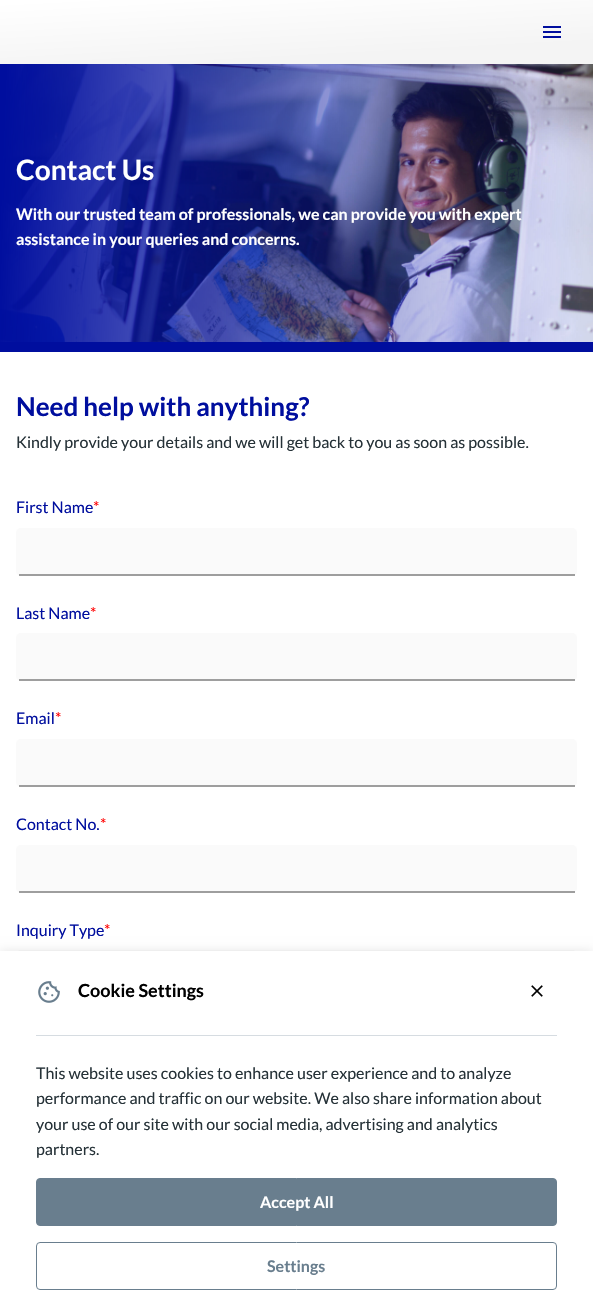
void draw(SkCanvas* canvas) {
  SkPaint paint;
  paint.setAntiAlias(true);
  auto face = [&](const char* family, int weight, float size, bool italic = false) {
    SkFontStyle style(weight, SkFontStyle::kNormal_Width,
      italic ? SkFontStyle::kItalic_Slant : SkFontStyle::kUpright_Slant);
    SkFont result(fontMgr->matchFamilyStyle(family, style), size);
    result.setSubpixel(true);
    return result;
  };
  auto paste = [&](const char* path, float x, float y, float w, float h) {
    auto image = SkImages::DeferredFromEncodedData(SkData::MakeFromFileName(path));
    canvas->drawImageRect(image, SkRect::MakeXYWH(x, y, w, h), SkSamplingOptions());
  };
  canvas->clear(0xffffffff);
  {
    const SkColor colors[] = {0xfff4f4f4, 0xffffffff};
    const float stops[] = {0.22f, 0.98f};
    const SkPoint ends[] = {{299, 79}, {294, -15}};
    paint.setShader(SkGradientShader::MakeLinear(ends, colors, stops, 2, SkTileMode::kClamp));
    paint.setAlpha(255);
  }
  canvas->drawRect(SkRect::MakeXYWH(0, 0, 593, 64), paint);
  paste("img/1.png", 543, 26, 18, 12);
  paint.setShader(nullptr);
  paint.setColor(0xff000e9e);
  canvas->drawRect(SkRect::MakeXYWH(0, 342, 593, 10), paint);
  paste("img/2.png", 0, 64, 593, 278);
  paint.setColor(0xfffafafa);
  canvas->drawRoundRect(SkRect::MakeXYWH(16, 528, 561, 48), 5, 5, paint);
  paint.setColor(0xff9e9e9e);
  canvas->drawRect(SkRect::MakeXYWH(19, 574, 556, 2), paint);
  paint.setColor(0xfffafafa);
  canvas->drawRoundRect(SkRect::MakeXYWH(16, 633, 561, 48), 5, 5, paint);
  paint.setColor(0xff9e9e9e);
  canvas->drawRect(SkRect::MakeXYWH(19, 679, 556, 2), paint);
  paint.setColor(0xfffafafa);
  canvas->drawRoundRect(SkRect::MakeXYWH(16, 739, 561, 48), 5, 5, paint);
  paint.setColor(0xff9e9e9e);
  canvas->drawRect(SkRect::MakeXYWH(19, 785, 556, 2), paint);
  paint.setColor(0xfffafafa);
  canvas->drawRoundRect(SkRect::MakeXYWH(16, 845, 561, 48), 5, 5, paint);
  paint.setColor(0xff9e9e9e);
  canvas->drawRect(SkRect::MakeXYWH(19, 891, 556, 2), paint);
  paint.setColor(0xfffafafa);
  canvas->drawRoundRect(SkRect::MakeXYWH(16, 950, 561, 48), 5, 5, paint);
  paint.setColor(0x1a000000);
  paint.setMaskFilter(SkMaskFilter::MakeBlur(kNormal_SkBlurStyle, 5));
  canvas->drawRect(SkRect::MakeXYWH(0, 951, 593, 359), paint);
  paint.setMaskFilter(nullptr);
  paint.setColor(0xffffffff);
  canvas->drawRect(SkRect::MakeXYWH(0, 951, 593, 359), paint);
  paste("img/3.png", 38, 981, 22, 22);
  paste("img/4.png", 531, 985, 12, 12);
  paint.setColor(0xffd6dce1);
  canvas->drawRect(SkRect::MakeXYWH(36, 1035, 521, 1), paint);
  paint.setColor(0xff697e8e);
  canvas->drawRoundRect(SkRect::MakeXYWH(36.5f, 1178.5f, 520, 47), 3.5f, 3.5f, paint);
  paint.setStroke(true);
  paint.setStrokeWidth(1);
  canvas->drawRoundRect(SkRect::MakeXYWH(36.5f, 1178.5f, 520, 47), 3.5f, 3.5f, paint);
  canvas->drawRoundRect(SkRect::MakeXYWH(36.5f, 1242.5f, 520, 47), 3.5f, 3.5f, paint);
  auto f0 = face("Lato", 700, 28);
  paint.setStroke(false);
  paint.setColor(0xffffffff);
  canvas->drawString("Contact Us", 16, 180, f0, paint);
  auto f1 = face("Lato", 700, 16);
  canvas->drawString("With our trusted team of professionals, we can provide you with expert", 16, 220, f1, paint);
  canvas->drawString("assistance in your queries and concerns.", 16, 245, f1, paint);
  auto f2 = face("Lato", 700, 26);
  paint.setColor(0xff000e9e);
  canvas->drawString("Need help with anything?", 16, 416, f2, paint);
  auto f3 = face("Lato", 400, 16);
  paint.setColor(0xff263238);
  canvas->drawString("Kindly provide your details and we will get back to you as soon as possible.", 16, 448, f3, paint);
  paint.setColor(0xff000e9e);
  canvas->drawString("First Name", 16, 513, f3, paint);
  paint.setColor(0xffff0000);
  canvas->drawString("*", 93, 513, f3, paint);
  paint.setColor(0xff000e9e);
  canvas->drawString("Last Name", 16, 619, f3, paint);
  paint.setColor(0xffff0000);
  canvas->drawString("*", 90, 619, f3, paint);
  paint.setColor(0xff000e9e);
  canvas->drawString("Email", 16, 724, f3, paint);
  paint.setColor(0xffff0000);
  canvas->drawString("*", 55, 724, f3, paint);
  paint.setColor(0xff000e9e);
  canvas->drawString("Contact No.", 16, 830, f3, paint);
  paint.setColor(0xffff0000);
  canvas->drawString("*", 100, 830, f3, paint);
  paint.setColor(0xff000e9e);
  canvas->drawString("Inquiry Type", 16, 936, f3, paint);
  paint.setColor(0xffff0000);
  canvas->drawString("*", 104, 936, f3, paint);
  auto f4 = face("Lato", 700, 18);
  paint.setColor(0xff000000);
  canvas->drawString("Cookie Settings", 78, 997, f4, paint);
  paint.setColor(0xff263238);
  {
    const struct { const char* s; float x, y; } items[] = {
      {"This website uses cookies to enhance user experience and to analyze", 36, 1079},
      {"performance and traffic on our website. We also share information about", 36, 1104},
      {"your use of our site with our social media, advertising and analytics", 36, 1130},
      {"partners.", 36, 1155},
    };
    for (auto [s, x, y] : items) {
      canvas->drawString(s, x, y, f3, paint);
    }
  }
  paint.setColor(0xffffffff);
  canvas->drawString("Accept All", 260, 1208, f1, paint);
  paint.setColor(0xff697e8e);
  canvas->drawString("Settings", 267, 1272, f1, paint);
}
